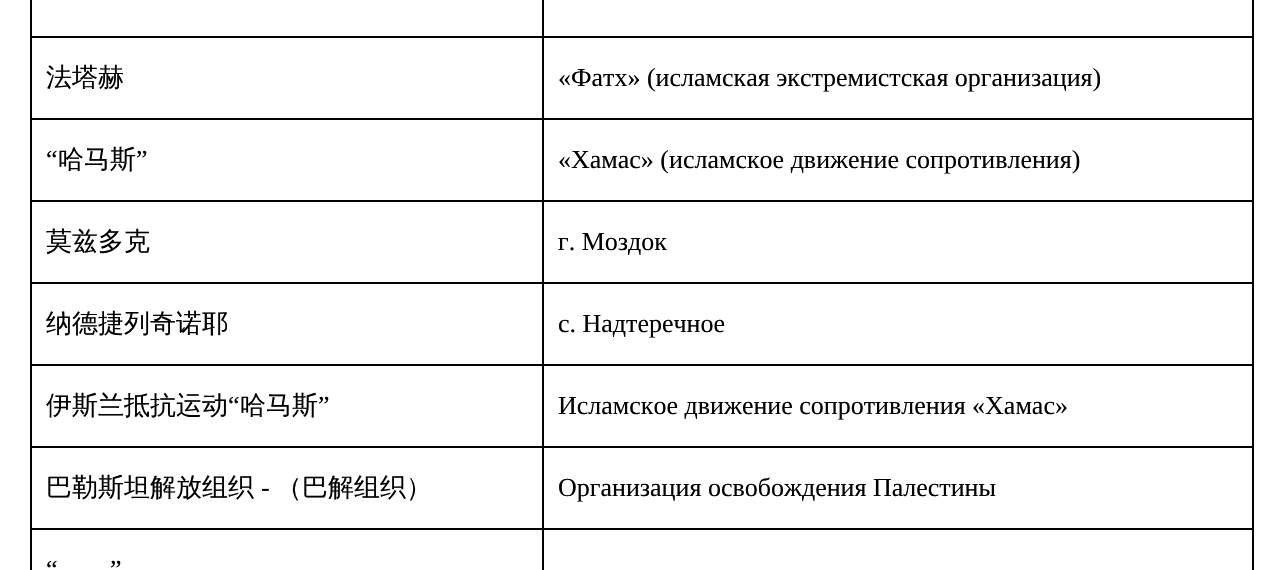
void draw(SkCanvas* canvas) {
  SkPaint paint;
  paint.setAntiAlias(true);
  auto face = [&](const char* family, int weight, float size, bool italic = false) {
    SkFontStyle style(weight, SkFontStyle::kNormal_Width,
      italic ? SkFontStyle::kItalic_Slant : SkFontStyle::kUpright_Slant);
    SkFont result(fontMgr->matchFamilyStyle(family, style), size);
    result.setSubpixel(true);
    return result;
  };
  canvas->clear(0xffffffff);
  {
    const struct { float x, y, w, h; SkColor color; } items[] = {
      {542, 528, 2, 42, 0xff000000},
      {1252, 0, 2, 570, 0xff000000},
      {542, 528, 712, 2, 0xff000000},
      {542, 446, 2, 84, 0xff000000},
      {542, 446, 712, 2, 0xff000000},
      {542, 364, 2, 84, 0xff000000},
      {542, 364, 712, 2, 0xff000000},
      {542, 282, 2, 84, 0xff000000},
      {542, 282, 712, 2, 0xff000000},
      {542, 200, 2, 84, 0xff000000},
      {542, 200, 712, 2, 0xff000000},
      {542, 118, 2, 84, 0xff000000},
      {542, 118, 712, 2, 0xff000000},
      {542, 36, 2, 84, 0xff000000},
      {542, 36, 712, 2, 0xff000000},
      {542, 0, 2, 38, 0xff000000},
      {30, 528, 2, 42, 0xff000000},
      {30, 528, 514, 2, 0xff000000},
      {30, 446, 2, 84, 0xff000000},
      {30, 446, 514, 2, 0xff000000},
      {30, 364, 2, 84, 0xff000000},
      {30, 364, 514, 2, 0xff000000},
      {30, 282, 2, 84, 0xff000000},
      {30, 282, 514, 2, 0xff000000},
      {30, 200, 2, 84, 0xff000000},
      {30, 200, 514, 2, 0xff000000},
      {30, 118, 2, 84, 0xff000000},
      {30, 118, 514, 2, 0xff000000},
      {30, 36, 2, 84, 0xff000000},
      {30, 36, 514, 2, 0xff000000},
      {30, 0, 2, 38, 0xff000000},
    };
    for (auto [x, y, w, h, color] : items) {
      paint.setColor(color);
      canvas->drawRect(SkRect::MakeXYWH(x, y, w, h), paint);
    }
  }
  auto f0 = face("WenQuanYi Zen Hei", 500, 26);
  canvas->drawString("法塔赫", 46, 86, f0, paint);
  auto f1 = face("Liberation Serif", 400, 26);
  canvas->drawString("«Фатх» (исламская экстремистская организация)", 558, 86, f1, paint);
  canvas->drawString("“", 46, 168, f1, paint);
  canvas->drawString("哈马斯", 58, 168, f0, paint);
  canvas->drawString("”", 136, 168, f1, paint);
  canvas->drawString("«Хамас» (исламское движение сопротивления)", 558, 168, f1, paint);
  canvas->drawString("莫兹多克", 46, 250, f0, paint);
  canvas->drawString("г. Моздок", 558, 250, f1, paint);
  canvas->drawString("纳德捷列奇诺耶", 46, 332, f0, paint);
  canvas->drawString("с. Надтеречное", 558, 332, f1, paint);
  canvas->drawString("伊斯兰抵抗运动", 46, 414, f0, paint);
  canvas->drawString("“", 228, 414, f1, paint);
  canvas->drawString("哈马斯", 240, 414, f0, paint);
  canvas->drawString("”", 318, 414, f1, paint);
  canvas->drawString("Исламское движение сопротивления «Хамас»", 558, 414, f1, paint);
  canvas->drawString("巴勒斯坦解放组织", 46, 496, f0, paint);
  canvas->drawString("-", 261, 496, f1, paint);
  canvas->drawString("（巴解组织）", 276, 496, f0, paint);
  {
    const struct { const char* s; float x, y; } items[] = {
      {"Организация освобождения Палестины", 558, 496},
      {"“", 46, 578},
      {"”", 110, 578},
    };
    for (auto [s, x, y] : items) {
      canvas->drawString(s, x, y, f1, paint);
    }
  }
}
